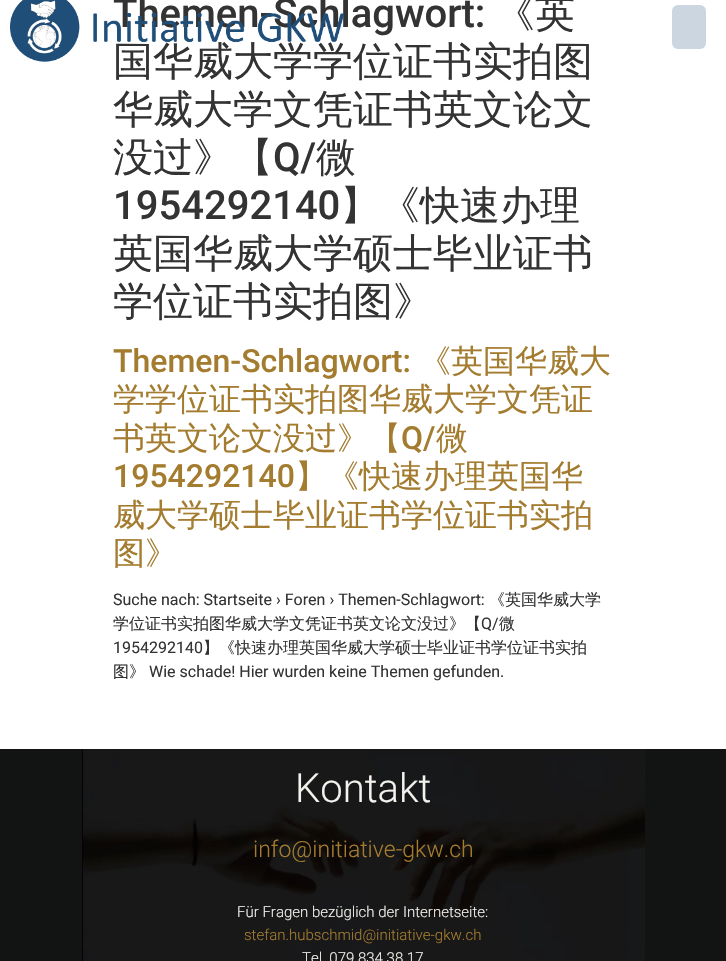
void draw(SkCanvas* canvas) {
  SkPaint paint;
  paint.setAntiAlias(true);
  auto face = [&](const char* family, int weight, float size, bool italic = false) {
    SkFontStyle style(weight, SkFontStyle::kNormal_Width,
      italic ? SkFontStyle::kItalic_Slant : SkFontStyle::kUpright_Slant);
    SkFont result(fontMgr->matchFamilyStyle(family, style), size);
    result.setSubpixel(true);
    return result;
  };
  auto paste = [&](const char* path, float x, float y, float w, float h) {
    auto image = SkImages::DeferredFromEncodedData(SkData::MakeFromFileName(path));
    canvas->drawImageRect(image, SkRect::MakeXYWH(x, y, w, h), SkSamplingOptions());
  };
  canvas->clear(0xffffffff);
  paint.setColor(0xffcbd6e0);
  canvas->drawRoundRect(SkRect::MakeXYWH(672, 5, 34, 44), 6, 6, paint);
  paint.setColor(0xff121313);
  canvas->drawRect(SkRect::MakeXYWH(0, 749, 726, 212), paint);
  paste("img/2.png", 82, 749, 563, 212);
  auto f0 = face("Roboto", 500, 40);
  paint.setColor(0xff333333);
  canvas->drawString("Themen-Schlagwort:", 113, 27, f0, paint);
  auto f1 = face("WenQuanYi Zen Hei", 500, 40);
  canvas->drawString("《英", 495, 27, f1, paint);
  canvas->drawString("国华威大学学位证书实拍图", 113, 75, f1, paint);
  paste("img/1.png", 10, 0, 334, 62);
  canvas->drawString("华威大学文凭证书英文论文", 113, 123, f1, paint);
  canvas->drawString("没过》【", 113, 171, f1, paint);
  canvas->drawString("Q/", 273, 171, f0, paint);
  canvas->drawString("微", 316, 171, f1, paint);
  canvas->drawString("1954292140", 113, 219, f0, paint);
  {
    const struct { const char* s; float x, y; } items[] = {
      {"】《快速办理", 340, 219},
      {"英国华威大学硕士毕业证书", 113, 267},
      {"学位证书实拍图》", 113, 315},
    };
    for (auto [s, x, y] : items) {
      canvas->drawString(s, x, y, f1, paint);
    }
  }
  auto f2 = face("Roboto", 500, 32);
  paint.setColor(0xffa47c2f);
  canvas->drawString("Themen-Schlagwort:", 113, 372, f2, paint);
  auto f3 = face("WenQuanYi Zen Hei", 500, 32);
  {
    const struct { const char* s; float x, y; } items[] = {
      {"《英国华威大", 419, 372},
      {"学学位证书实拍图华威大学文凭证", 113, 410},
      {"书英文论文没过》【", 113, 449},
    };
    for (auto [s, x, y] : items) {
      canvas->drawString(s, x, y, f3, paint);
    }
  }
  canvas->drawString("Q/", 401, 449, f2, paint);
  canvas->drawString("微", 436, 449, f3, paint);
  canvas->drawString("1954292140", 113, 487, f2, paint);
  {
    const struct { const char* s; float x, y; } items[] = {
      {"】《快速办理英国华", 295, 487},
      {"威大学硕士毕业证书学位证书实拍", 113, 526},
      {"图》", 113, 564},
    };
    for (auto [s, x, y] : items) {
      canvas->drawString(s, x, y, f3, paint);
    }
  }
  auto f4 = face("Roboto", 400, 16);
  paint.setColor(0xff333333);
  canvas->drawString("Suche nach: Startseite › Foren › Themen-Schlagwort:", 113, 605, f4, paint);
  auto f5 = face("WenQuanYi Zen Hei", 500, 16);
  canvas->drawString("《英国华威大学", 489, 605, f5, paint);
  canvas->drawString("学位证书实拍图华威大学文凭证书英文论文没过》【", 113, 629, f5, paint);
  canvas->drawString("Q/", 481, 629, f4, paint);
  canvas->drawString("微", 499, 629, f5, paint);
  canvas->drawString("1954292140", 113, 653, f4, paint);
  canvas->drawString("】《快速办理英国华威大学硕士毕业证书学位证书实拍", 203, 653, f5, paint);
  canvas->drawString("图》", 113, 677, f5, paint);
  canvas->drawString("Wie schade! Hier wurden keine Themen gefunden.", 149, 677, f4, paint);
  auto f6 = face("Roboto", 300, 40);
  paint.setColor(0xfff3f2ee);
  canvas->drawString("Kontakt", 295, 802, f6, paint);
  auto f7 = face("Roboto", 300, 23);
  paint.setColor(0xffa47c2f);
  canvas->drawString("info@initiative-gkw.ch", 253, 857, f7, paint);
  auto f8 = face("Roboto", 300, 15);
  paint.setColor(0xfff3f2ee);
  canvas->drawString("Für Fragen bezüglich der Internetseite:", 237, 917, f8, paint);
  paint.setColor(0xffa47c2f);
  canvas->drawString("stefan.hubschmid@initiative-gkw.ch", 244, 940, f8, paint);
  paint.setColor(0xfff3f2ee);
  canvas->drawString("Tel. 079 834 38 17", 302, 963, f8, paint);
}
